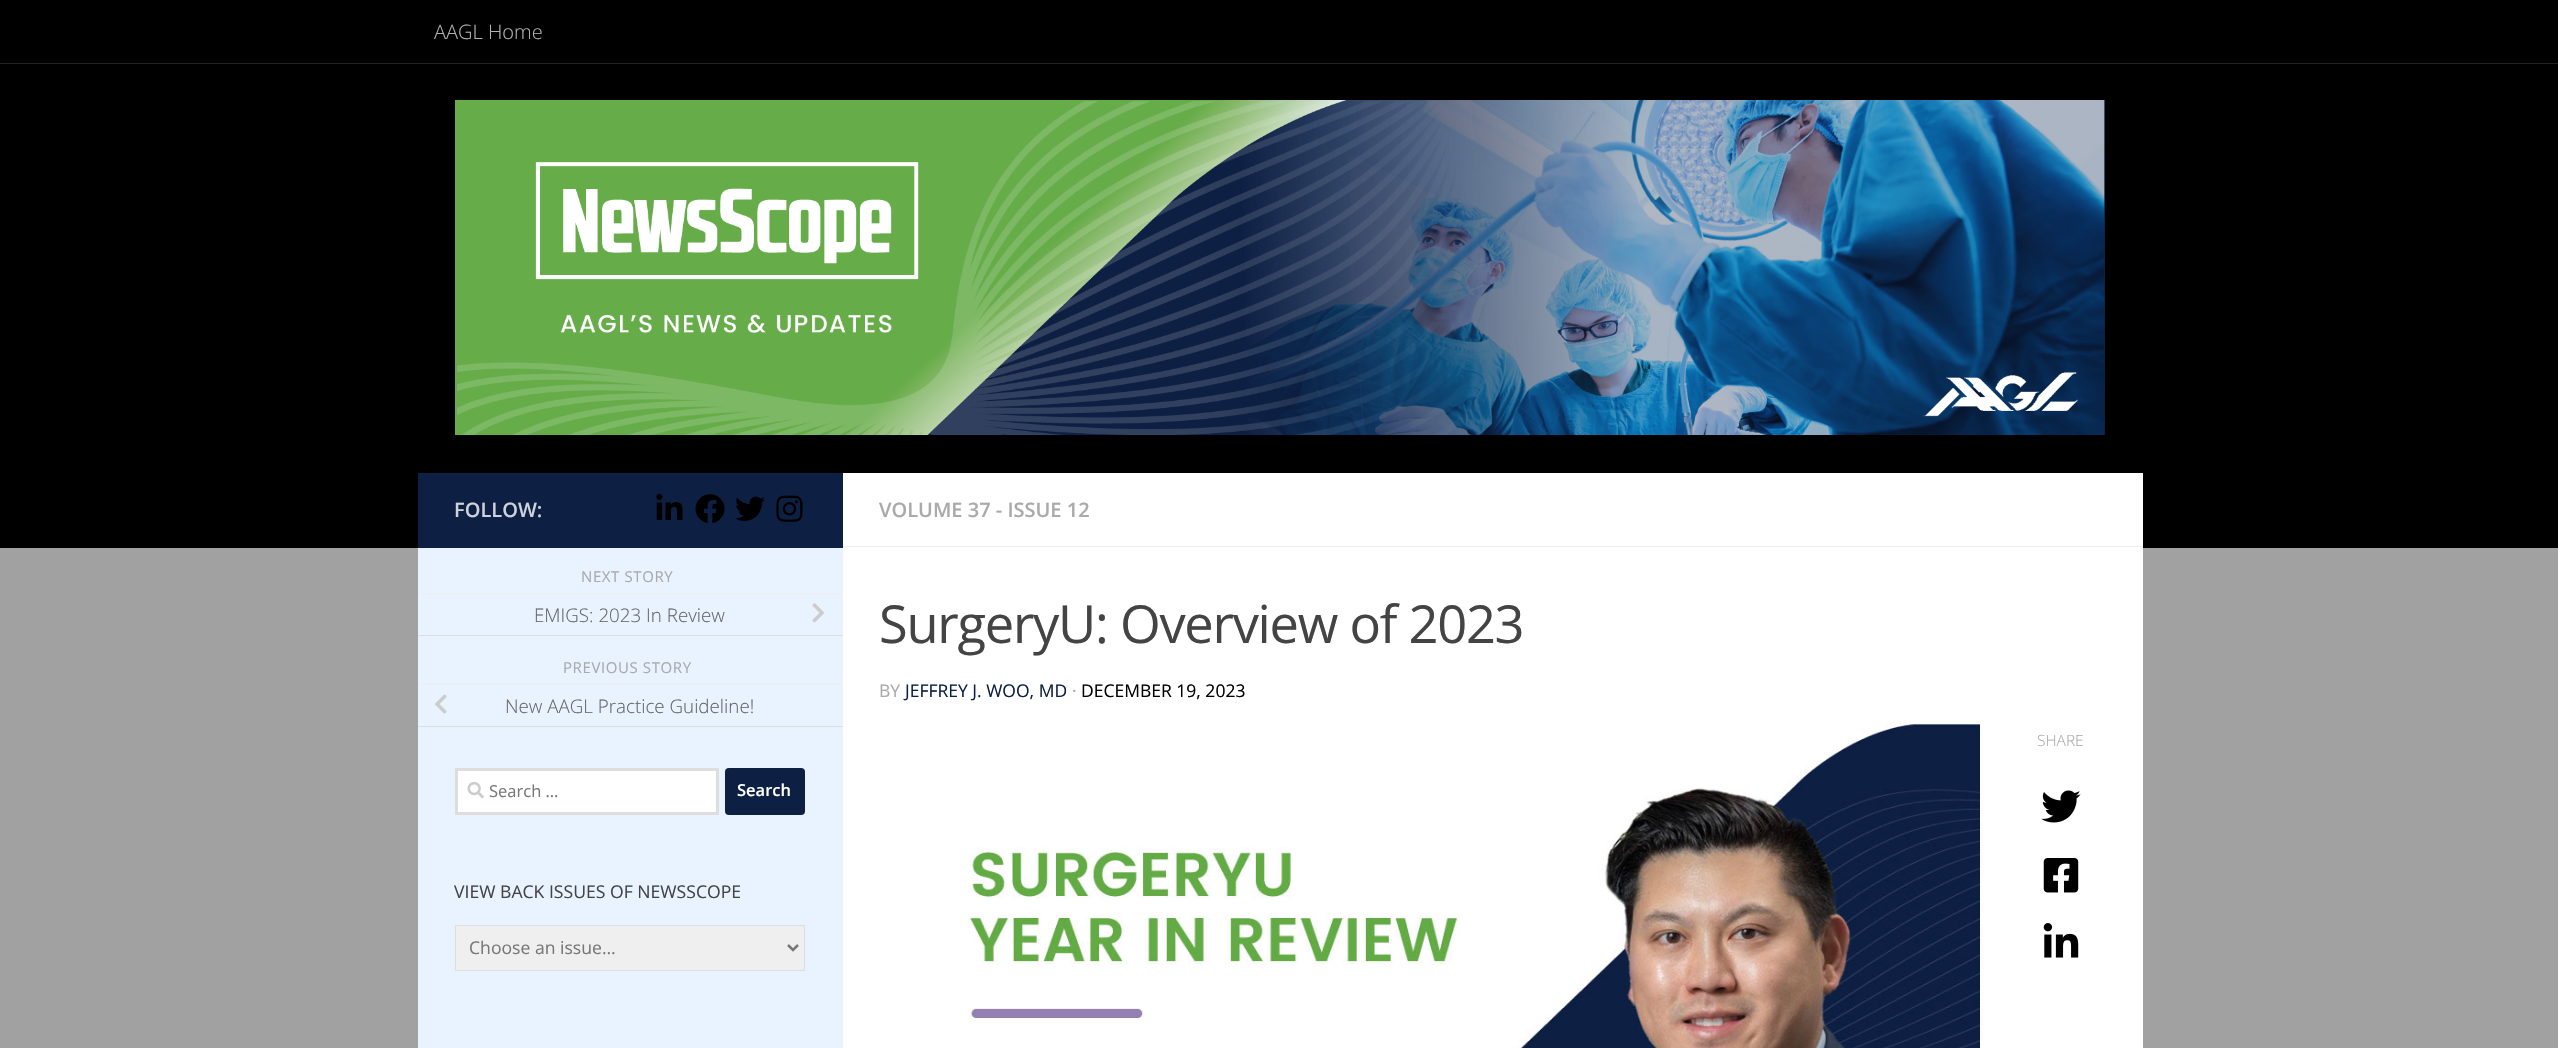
void draw(SkCanvas* canvas) {
  SkPaint paint;
  paint.setAntiAlias(true);
  auto face = [&](const char* family, int weight, float size, bool italic = false) {
    SkFontStyle style(weight, SkFontStyle::kNormal_Width,
      italic ? SkFontStyle::kItalic_Slant : SkFontStyle::kUpright_Slant);
    SkFont result(fontMgr->matchFamilyStyle(family, style), size);
    result.setSubpixel(true);
    return result;
  };
  auto writeSpaced = [&](const char* s, float x, float y, const SkFont& font, const SkPaint& ink, float letter, float word) {
    std::vector<SkGlyphID> glyphs(font.countText(s, strlen(s), SkTextEncoding::kUTF8));
    std::vector<float> xs(glyphs.size());
    font.textToGlyphs(s, strlen(s), SkTextEncoding::kUTF8, glyphs);
    font.getXPos(glyphs, xs, x);
    float extra = 0;
    for (size_t i = 0; i < glyphs.size(); i++) {
      xs[i] += extra;
      extra += letter + word * (glyphs[i] == font.unicharToGlyph(' '));
    }
    canvas->drawTextBlob(SkTextBlob::MakeFromPosHGlyphs(glyphs, xs, y, font), 0, 0, ink);
  };
  auto paste = [&](const char* path, float x, float y, float w, float h) {
    auto image = SkImages::DeferredFromEncodedData(SkData::MakeFromFileName(path));
    canvas->drawImageRect(image, SkRect::MakeXYWH(x, y, w, h), SkSamplingOptions());
  };
  auto shape = [&](const char* data, bool evenOdd = false) {
    SkPath result = *SkParsePath::FromSVGString(data);
    if (evenOdd) result.setFillType(SkPathFillType::kEvenOdd);
    return result;
  };
  canvas->clear(0xffa1a1a1);
  paint.setColor(0xff000000);
  canvas->drawRect(SkRect::MakeXYWH(0, 64, 2558, 484), paint);
  paint.setColor(0xff262626);
  canvas->drawPath(shape("M0 62V64H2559V1V62Z"), paint);
  paint.setColor(0x33000000);
  paint.setMaskFilter(SkMaskFilter::MakeBlur(kNormal_SkBlurStyle, 3));
  canvas->drawRect(SkRect::MakeXYWH(0, 0, 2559, 63), paint);
  paint.setMaskFilter(nullptr);
  paint.setColor(0xff000000);
  canvas->drawRect(SkRect::MakeXYWH(0, 0, 2558, 63), paint);
  paste("img/1.png", 455, 100, 1650, 335);
  paint.setColor(0xffffffff);
  canvas->drawRect(SkRect::MakeXYWH(843, 473, 1300, 575), paint);
  paint.setColor(0xff0e1f44);
  canvas->drawRect(SkRect::MakeXYWH(418, 473, 425, 75), paint);
  paste("img/2.png", 656, 493, 27, 27);
  paste("img/3.png", 695, 494, 30, 29);
  paste("img/4.png", 735, 496, 30, 25);
  paste("img/5.png", 776, 495, 27, 27);
  {
    const struct { float x, y, w, h; SkColor color; } items[] = {
      {418, 548, 425, 500, 0xffe8f3ff},
      {418, 593, 425, 1, 0xffeeeeee},
      {418, 635, 425, 1, 0xffdddddd},
    };
    for (auto [x, y, w, h, color] : items) {
      paint.setColor(color);
      canvas->drawRect(SkRect::MakeXYWH(x, y, w, h), paint);
    }
  }
  paste("img/6.png", 812, 603, 12, 20);
  paint.setColor(0xffeeeeee);
  canvas->drawRect(SkRect::MakeXYWH(418, 684, 425, 1), paint);
  paint.setColor(0xffdddddd);
  canvas->drawRect(SkRect::MakeXYWH(418, 726, 425, 1), paint);
  paste("img/7.png", 435, 694, 12, 20);
  paint.setColor(0xffffffff);
  canvas->drawRect(SkRect::MakeXYWH(456.5f, 769.5f, 261, 44), paint);
  paint.setStroke(true);
  paint.setStrokeWidth(3);
  paint.setColor(0xffdddddd);
  canvas->drawRect(SkRect::MakeXYWH(456.5f, 769.5f, 261, 44), paint);
  paste("img/8.png", 467, 782, 17, 17);
  paint.setStroke(false);
  paint.setColor(0xff0e1f44);
  canvas->drawRoundRect(SkRect::MakeXYWH(725, 768, 80, 47), 4, 4, paint);
  paint.setColor(0xffefefef);
  canvas->drawRect(SkRect::MakeXYWH(455.5f, 925.5f, 349, 45), paint);
  paint.setStroke(true);
  paint.setStrokeWidth(1);
  paint.setColor(0xffdddddd);
  canvas->drawRect(SkRect::MakeXYWH(455.5f, 925.5f, 349, 45), paint);
  paint.setStrokeWidth(2.5f);
  paint.setColor(0xff777777);
  canvas->drawPath(shape("M788 945L793 950L798 945"), paint);
  paint.setStroke(false);
  paint.setColor(0xffeeeeee);
  canvas->drawRect(SkRect::MakeXYWH(843, 546, 1300, 1), paint);
  paste("img/9.png", 968, 722, 1012, 326);
  paste("img/10.png", 2041, 790, 40, 33);
  paste("img/11.png", 2043, 858, 36, 35);
  paste("img/12.png", 2043, 923, 36, 35);
  auto f0 = face("Open Sans", 300, 20);
  paint.setColor(0xffb3b3b3);
  canvas->drawString("AAGL Home", 434, 39, f0, paint);
  auto f1 = face("Open Sans", 600, 20);
  paint.setColor(0xffcfd2da);
  canvas->drawString("FOLLOW:", 454, 517, f1, paint);
  auto f2 = face("Open Sans", 400, 15);
  paint.setColor(0xffaaaaaa);
  writeSpaced("NEXT STORY", 581, 582, f2, paint, 0.6f, 0);
  auto f3 = face("Open Sans", 300, 18.75f);
  paint.setColor(0xff666666);
  canvas->drawString("EMIGS: 2023 In Review", 534, 622, f3, paint);
  paint.setColor(0xffaaaaaa);
  writeSpaced("PREVIOUS STORY", 563, 673, f2, paint, 0.6f, 0);
  paint.setColor(0xff666666);
  canvas->drawString("New AAGL Practice Guideline!", 505, 713, f3, paint);
  auto f4 = face("Open Sans", 400, 16.5f);
  paint.setColor(0xff777777);
  canvas->drawString("Search …", 489, 797, f4, paint);
  auto f5 = face("Open Sans", 600, 16.5f);
  paint.setColor(0xffffffff);
  canvas->drawString("Search", 737, 796, f5, paint);
  auto f6 = face("Open Sans", 400, 17.6f);
  paint.setColor(0xff444444);
  canvas->drawString("VIEW BACK ISSUES OF NEWSSCOPE", 454, 898, f6, paint);
  paint.setColor(0xff777777);
  canvas->drawString("Choose an issue…", 469, 954, f6, paint);
  paint.setColor(0xffaaaaaa);
  canvas->drawString("VOLUME 37 - ISSUE 12", 879, 517, f1, paint);
  auto f7 = face("Open Sans", 400, 52.4f);
  paint.setColor(0xff444444);
  writeSpaced("SurgeryU: Overview of 2023", 879, 643, f7, paint, -1.25f, 0);
  auto f8 = face("Open Sans", 400, 17.5f);
  paint.setColor(0xffaaaaaa);
  canvas->drawString("BY", 879, 697, f8, paint);
  paint.setColor(0xff0e1f44);
  canvas->drawString("JEFFREY J. WOO, MD", 905, 697, f8, paint);
  paint.setColor(0xffaaaaaa);
  canvas->drawString("·", 1072, 697, f8, paint);
  paint.setColor(0xff000000);
  canvas->drawString("DECEMBER 19, 2023", 1081, 697, f8, paint);
  auto f9 = face("Open Sans", 300, 15.5f);
  paint.setColor(0xffaaaaaa);
  canvas->drawString("SHARE", 2037, 746, f9, paint);
}
